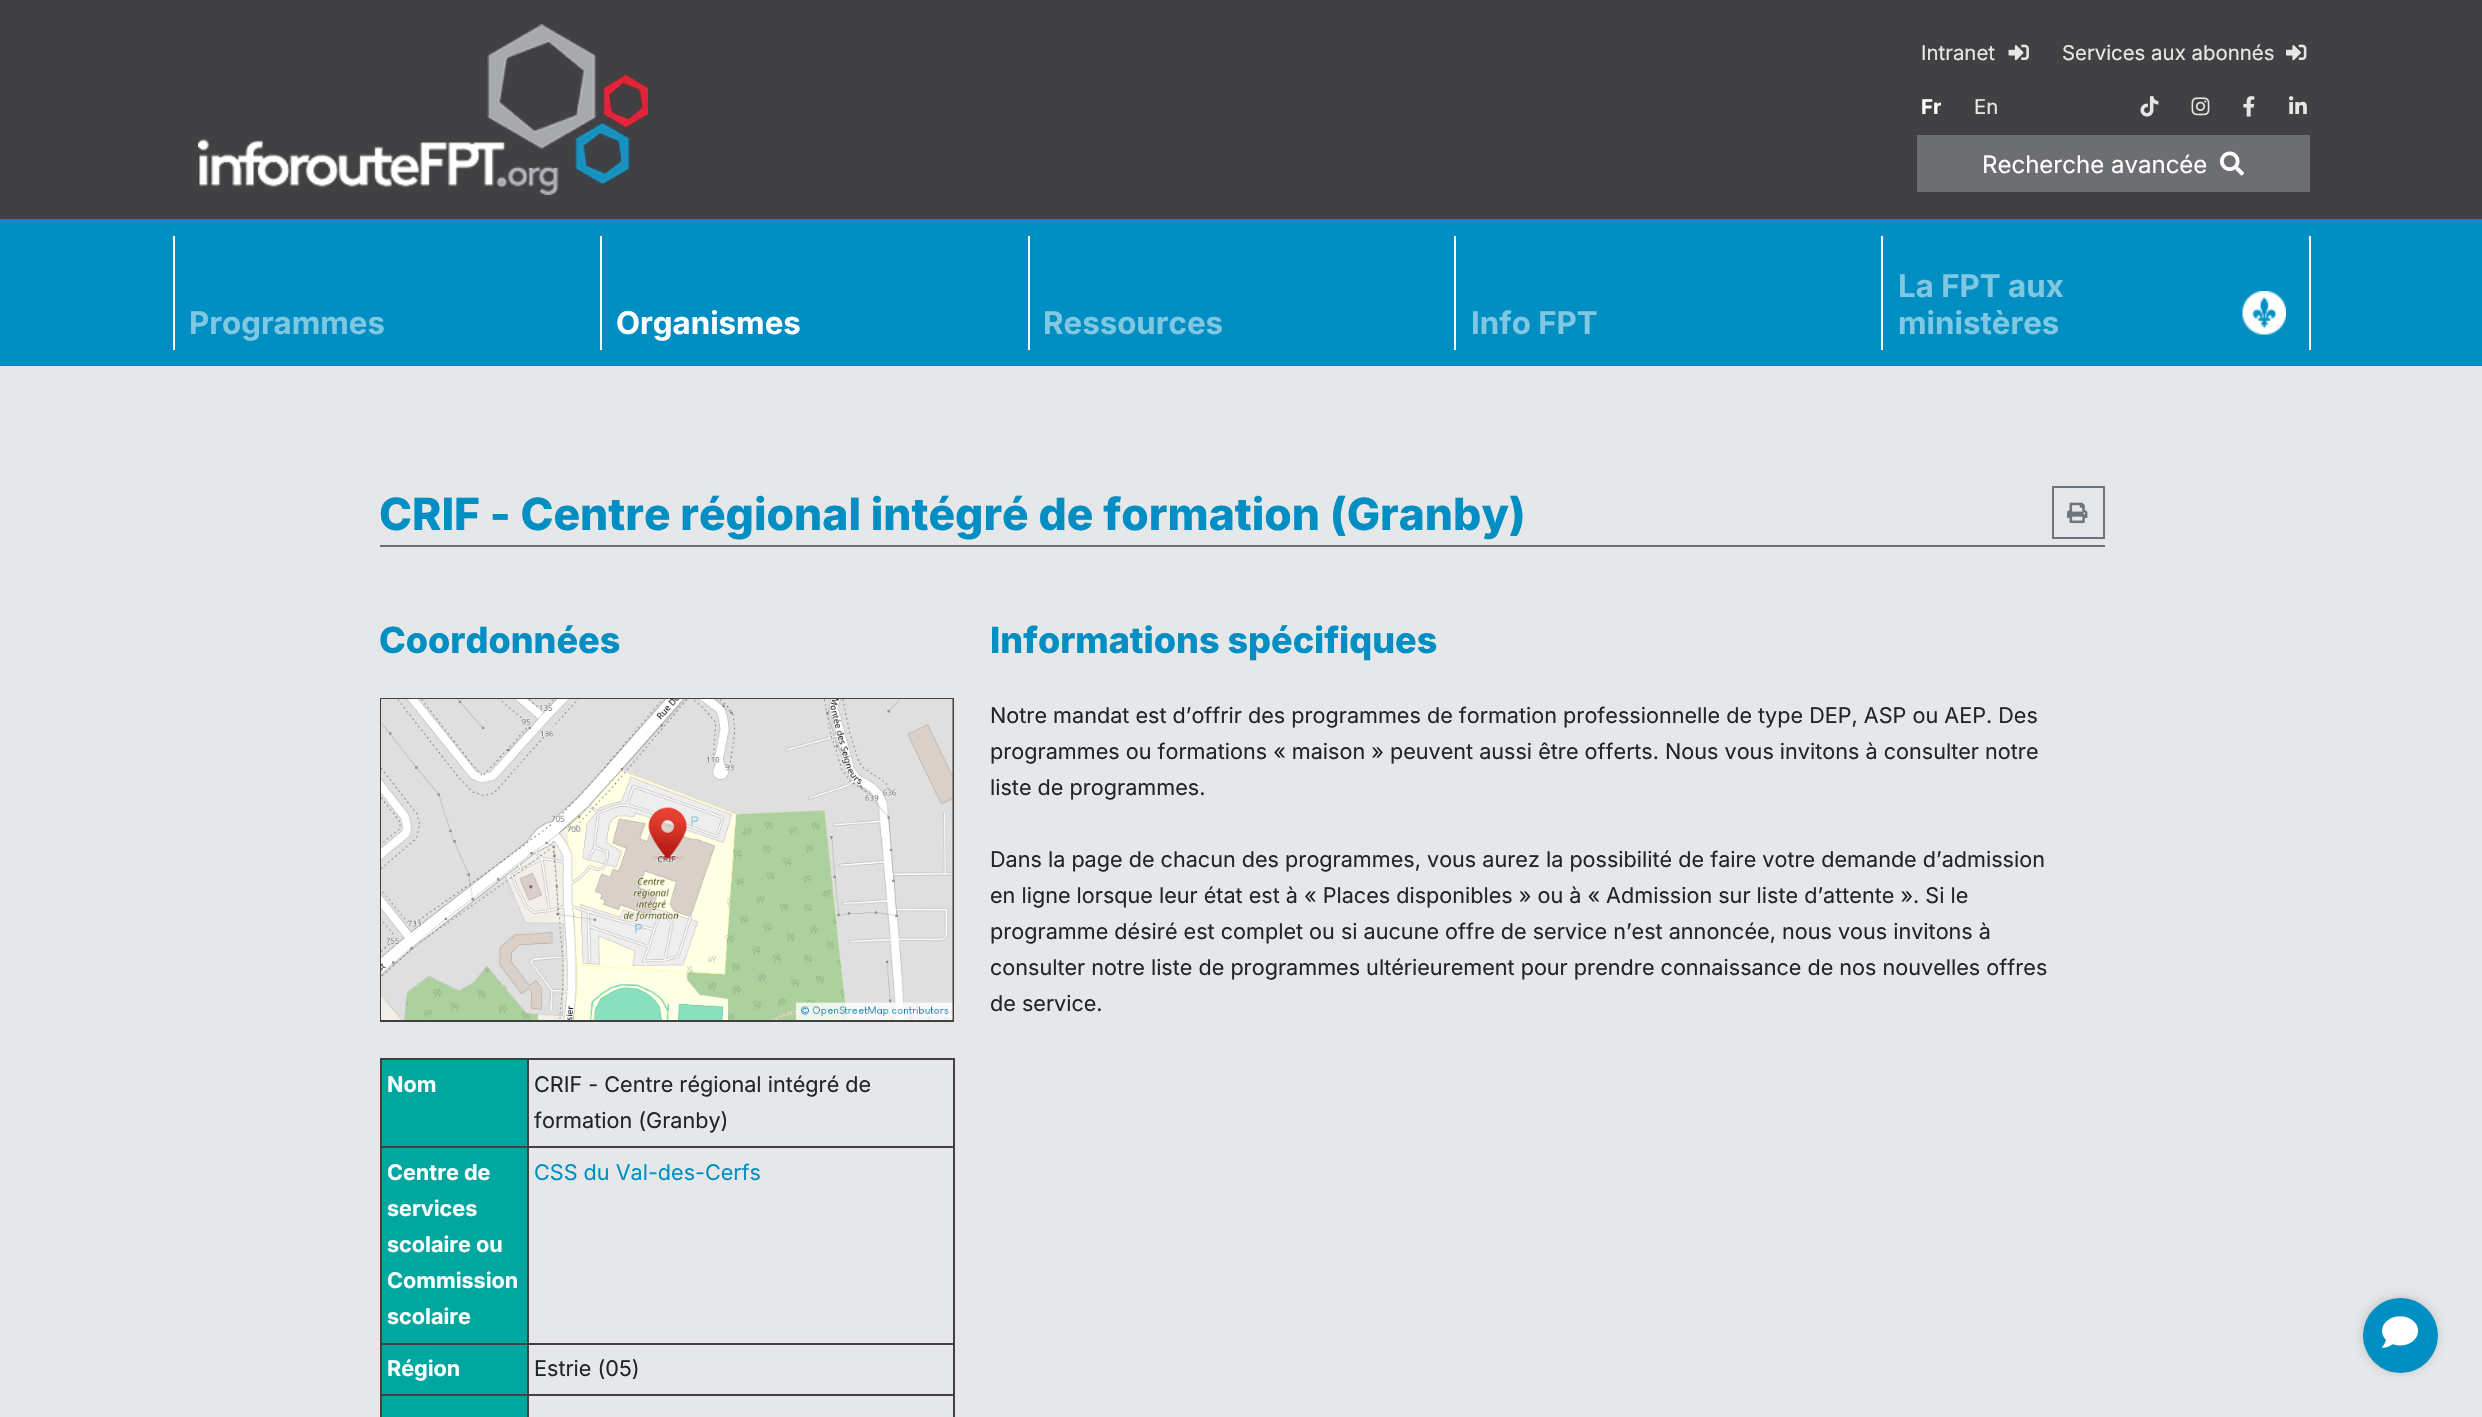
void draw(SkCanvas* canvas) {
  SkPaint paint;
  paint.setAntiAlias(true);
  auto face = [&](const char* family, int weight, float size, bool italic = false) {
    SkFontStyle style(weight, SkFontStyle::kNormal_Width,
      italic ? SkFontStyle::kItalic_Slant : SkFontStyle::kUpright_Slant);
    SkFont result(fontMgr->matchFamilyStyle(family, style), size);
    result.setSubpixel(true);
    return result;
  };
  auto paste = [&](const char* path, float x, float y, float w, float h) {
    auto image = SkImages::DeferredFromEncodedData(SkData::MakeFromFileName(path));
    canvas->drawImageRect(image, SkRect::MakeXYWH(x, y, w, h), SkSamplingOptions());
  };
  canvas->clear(0xff414042);
  paste("img/1.png", 198, 24, 450, 171);
  paste("img/2.png", 2008, 44, 21, 17);
  paste("img/3.png", 2286, 44, 21, 17);
  paste("img/4.png", 2140, 96, 19, 21);
  paste("img/5.png", 2191, 97, 19, 19);
  paste("img/6.png", 2243, 96, 12, 21);
  paste("img/7.png", 2289, 96, 18, 18);
  paint.setColor(0xff6d6e71);
  canvas->drawRect(SkRect::MakeXYWH(1917, 135, 393, 57), paint);
  paste("img/8.png", 2220, 151, 24, 25);
  {
    const struct { float x, y, w, h; SkColor color; } items[] = {
      {0, 219, 2482, 147, 0xff008ec3},
      {173, 236, 2, 114, 0xffffffff},
      {600, 236, 2, 114, 0xffffffff},
      {1028, 236, 2, 114, 0xffffffff},
      {1454, 236, 2, 114, 0xffffffff},
      {2309, 236, 2, 114, 0xffffffff},
      {1881, 236, 2, 114, 0xffffffff},
    };
    for (auto [x, y, w, h, color] : items) {
      paint.setColor(color);
      canvas->drawRect(SkRect::MakeXYWH(x, y, w, h), paint);
    }
  }
  paste("img/9.png", 2242, 291, 44, 44);
  paint.setColor(0xffe6e7e8);
  canvas->drawRect(SkRect::MakeXYWH(0, 366, 2482, 1051), paint);
  paint.setColor(0xff6d6e71);
  canvas->drawRect(SkRect::MakeXYWH(380, 545, 1725, 2), paint);
  paint.setStroke(true);
  paint.setStrokeWidth(2);
  paint.setColor(0xff6c757d);
  canvas->drawRect(SkRect::MakeXYWH(2053, 487, 51, 51), paint);
  paste("img/10.png", 2067, 502, 21, 22);
  paint.setColor(0xff414042);
  canvas->drawRect(SkRect::MakeXYWH(381, 699, 572, 322), paint);
  paste("img/11.png", 381, 699, 572, 321);
  paint.setStroke(false);
  {
    const struct { float x, y, w, h; SkColor color; } items[] = {
      {380, 1058, 574, 2, 0xff414042},
      {953, 1058, 2, 359, 0xff414042},
      {380, 1058, 2, 359, 0xff414042},
      {382, 1060, 145, 86, 0xff00a79e},
      {527, 1146, 427, 2, 0xff414042},
      {527, 1343, 427, 2, 0xff414042},
      {527, 1394, 427, 2, 0xff414042},
      {527, 1394, 2, 23, 0xff414042},
      {380, 1394, 148, 2, 0xff414042},
      {527, 1343, 2, 52, 0xff414042},
      {380, 1343, 148, 2, 0xff414042},
      {527, 1146, 2, 198, 0xff414042},
      {380, 1146, 148, 2, 0xff414042},
      {527, 1058, 2, 90, 0xff414042},
      {382, 1148, 145, 195, 0xff00a79e},
      {382, 1345, 145, 49, 0xff00a79e},
      {382, 1396, 145, 21, 0xff00a79e},
    };
    for (auto [x, y, w, h, color] : items) {
      paint.setColor(color);
      canvas->drawRect(SkRect::MakeXYWH(x, y, w, h), paint);
    }
  }
  paint.setColor(0xff4d4d4d);
  paint.setMaskFilter(SkMaskFilter::MakeBlur(kNormal_SkBlurStyle, 7.5f));
  canvas->drawRoundRect(SkRect::MakeXYWH(2370, 1305, 60, 60), 30, 30, paint);
  paint.setMaskFilter(nullptr);
  paint.setColor(0xff008ec3);
  canvas->drawCircle(2400.5f, 1335.5f, 37.5f, paint);
  paste("img/12.png", 2382, 1316, 37, 32);
  auto f0 = face("Inter", 400, 20.4f);
  paint.setColor(0xffe6e7e8);
  canvas->drawString("Intranet", 1921, 60, f0, paint);
  canvas->drawString("Services aux abonnés", 2062, 60, f0, paint);
  auto f1 = face("Inter", 700, 20.4f);
  paint.setColor(0xffffffff);
  canvas->drawString("Fr", 1921, 114, f1, paint);
  paint.setColor(0xffe6e7e8);
  canvas->drawString("En", 1974, 114, f0, paint);
  auto f2 = face("Inter", 400, 24);
  paint.setColor(0xffffffff);
  canvas->drawString("Recherche avancée", 1982, 173, f2, paint);
  auto f3 = face("Inter", 700, 31.25f);
  paint.setColor(0xff80c7e1);
  canvas->drawString("Programmes", 189, 334, f3, paint);
  paint.setColor(0xffffffff);
  canvas->drawString("Organismes", 616, 334, f3, paint);
  paint.setColor(0xff80c7e1);
  {
    const struct { const char* s; float x, y; } items[] = {
      {"Ressources", 1043, 334},
      {"Info FPT", 1471, 334},
      {"La FPT aux", 1898, 297},
      {"ministères", 1898, 334},
    };
    for (auto [s, x, y] : items) {
      canvas->drawString(s, x, y, f3, paint);
    }
  }
  auto f4 = face("Inter", 800, 44.4f);
  paint.setColor(0xff008ec3);
  canvas->drawString("CRIF - Centre régional intégré de formation (Granby)", 379, 530, f4, paint);
  auto f5 = face("Inter", 800, 36);
  canvas->drawString("Coordonnées", 379, 653, f5, paint);
  auto f6 = face("Inter", 700, 21.6f);
  paint.setColor(0xffffffff);
  canvas->drawString("Nom", 387, 1092, f6, paint);
  auto f7 = face("Inter", 400, 21.6f);
  paint.setColor(0xff212529);
  canvas->drawString("CRIF - Centre régional intégré de", 534, 1092, f7, paint);
  canvas->drawString("formation (Granby)", 534, 1128, f7, paint);
  paint.setColor(0xffffffff);
  {
    const struct { const char* s; float x, y; } items[] = {
      {"Centre de", 387, 1180},
      {"services", 387, 1216},
      {"scolaire ou", 387, 1252},
      {"Commission", 387, 1288},
      {"scolaire", 387, 1324},
    };
    for (auto [s, x, y] : items) {
      canvas->drawString(s, x, y, f6, paint);
    }
  }
  paint.setColor(0xff008ec3);
  canvas->drawString("CSS du Val-des-Cerfs", 534, 1180, f7, paint);
  paint.setColor(0xffffffff);
  canvas->drawString("Région", 387, 1376, f6, paint);
  paint.setColor(0xff212529);
  canvas->drawString("Estrie (05)", 534, 1376, f7, paint);
  paint.setColor(0xff008ec3);
  canvas->drawString("Informations spécifiques", 990, 653, f5, paint);
  paint.setColor(0xff212529);
  {
    const struct { const char* s; float x, y; } items[] = {
      {"Notre mandat est d’offrir des programmes de formation professionnelle de type DEP, ASP ou AEP. Des", 990, 723},
      {"programmes ou formations « maison » peuvent aussi être offerts. Nous vous invitons à consulter notre", 990, 759},
      {"liste de programmes.", 990, 795},
      {"Dans la page de chacun des programmes, vous aurez la possibilité de faire votre demande d’admission", 990, 867},
      {"en ligne lorsque leur état est à « Places disponibles » ou à « Admission sur liste d’attente ». Si le", 990, 903},
      {"programme désiré est complet ou si aucune offre de service n’est annoncée, nous vous invitons à", 990, 939},
      {"consulter notre liste de programmes ultérieurement pour prendre connaissance de nos nouvelles offres", 990, 975},
      {"de service.", 990, 1011},
    };
    for (auto [s, x, y] : items) {
      canvas->drawString(s, x, y, f7, paint);
    }
  }
}
